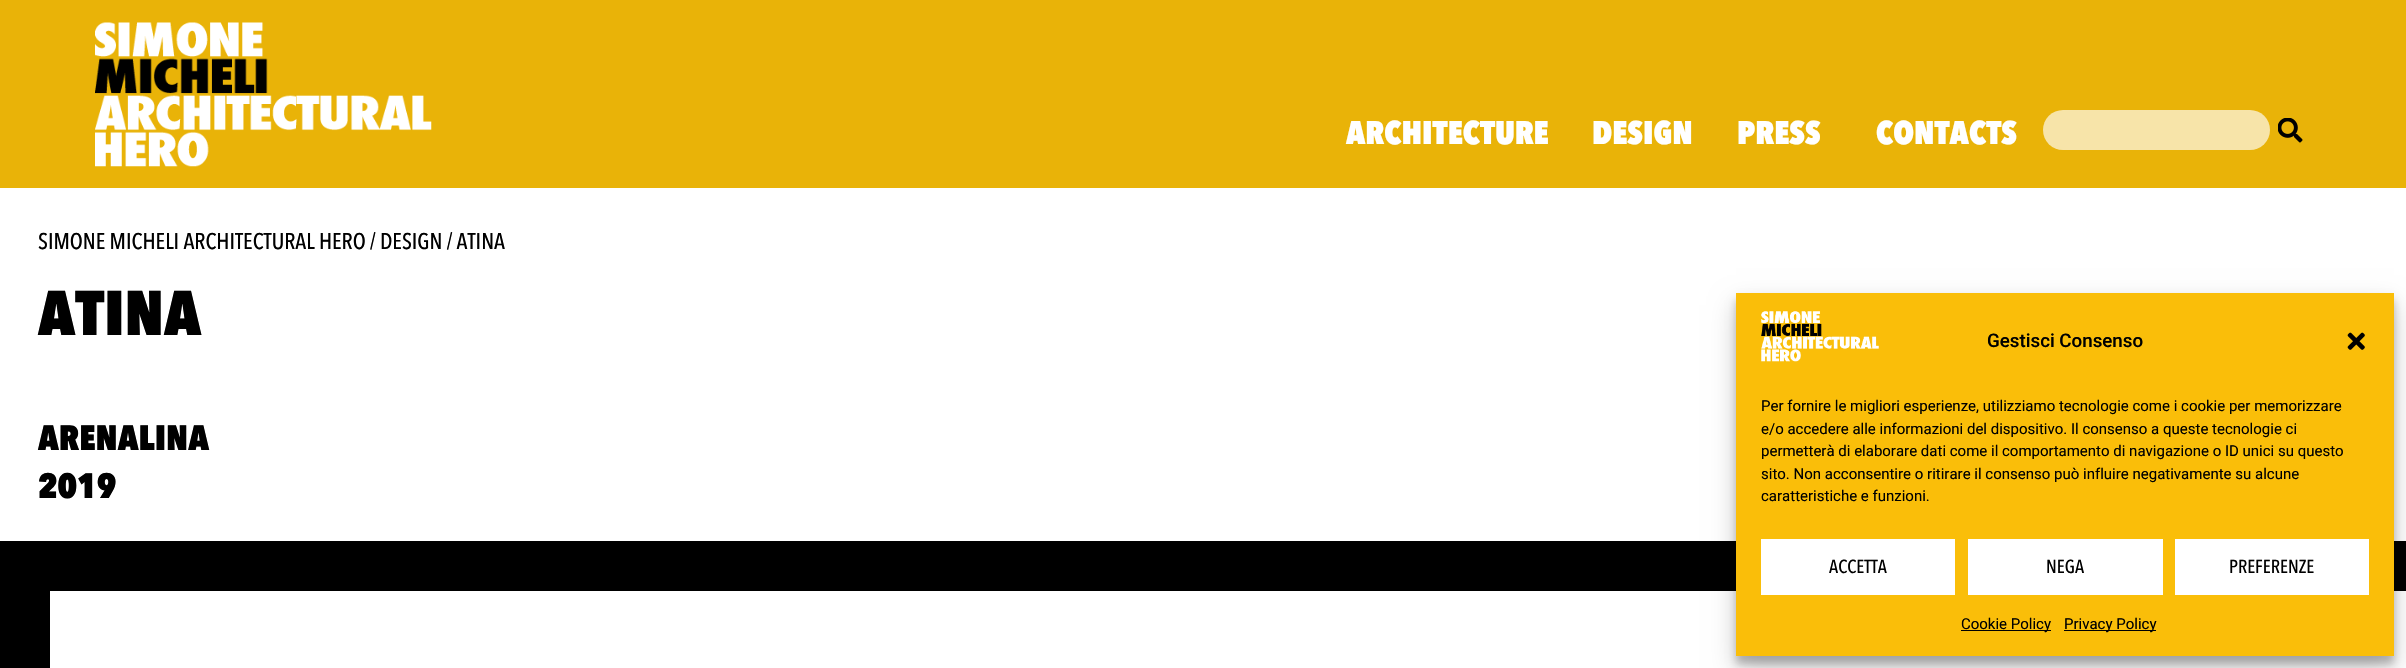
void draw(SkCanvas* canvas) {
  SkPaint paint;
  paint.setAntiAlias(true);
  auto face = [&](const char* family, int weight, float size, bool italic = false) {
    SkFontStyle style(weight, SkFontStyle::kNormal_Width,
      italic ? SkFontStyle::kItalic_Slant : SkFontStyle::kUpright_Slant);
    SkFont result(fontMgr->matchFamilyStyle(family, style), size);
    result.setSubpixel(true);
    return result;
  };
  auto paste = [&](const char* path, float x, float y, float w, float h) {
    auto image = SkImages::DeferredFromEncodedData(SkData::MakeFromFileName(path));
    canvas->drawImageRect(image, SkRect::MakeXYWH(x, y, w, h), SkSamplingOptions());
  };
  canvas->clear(0xffffffff);
  paint.setColor(0xffe9b308);
  canvas->drawRect(SkRect::MakeXYWH(0, 0, 2406, 188), paint);
  paste("img/1.png", 95, 22, 337, 145);
  paint.setColor(0xfff7e4a9);
  canvas->drawRoundRect(SkRect::MakeXYWH(2043, 110, 227, 40), 20, 20, paint);
  paste("img/2.png", 2278, 118, 25, 25);
  paint.setColor(0xff000000);
  canvas->drawRect(SkRect::MakeXYWH(0, 541, 2406, 127), paint);
  paint.setColor(0xffffffff);
  canvas->drawRect(SkRect::MakeXYWH(50, 591, 2356, 77), paint);
  paint.setColor(0x3b000000);
  paint.setMaskFilter(SkMaskFilter::MakeBlur(kNormal_SkBlurStyle, 4));
  canvas->drawRect(SkRect::MakeXYWH(1736, 300, 658, 364), paint);
  paint.setMaskFilter(nullptr);
  paint.setColor(0x30000000);
  paint.setMaskFilter(SkMaskFilter::MakeBlur(kNormal_SkBlurStyle, 12.5f));
  canvas->drawRect(SkRect::MakeXYWH(1736, 305, 658, 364), paint);
  paint.setMaskFilter(nullptr);
  paint.setColor(0xfffabe09);
  canvas->drawRect(SkRect::MakeXYWH(1736, 293, 658, 363), paint);
  paste("img/3.png", 1761, 311, 118, 51);
  paste("img/4.png", 2347, 332, 18, 18);
  {
    const struct { float x, y, w, h; SkColor color; } items[] = {
      {1761, 539, 194, 56, 0xffffffff},
      {1968, 539, 195, 56, 0xffffffff},
      {2175, 539, 194, 56, 0xffffffff},
      {1961, 630, 90, 1, 0xff000000},
      {2064, 630, 92, 1, 0xff000000},
    };
    for (auto [x, y, w, h, color] : items) {
      paint.setColor(color);
      canvas->drawRect(SkRect::MakeXYWH(x, y, w, h), paint);
    }
  }
  auto f0 = face("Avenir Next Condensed", 900, 32.5f);
  paint.setColor(0xffffffff);
  {
    const struct { const char* s; float x, y; } items[] = {
      {"ARCHITECTURE", 1346, 144},
      {"DESIGN", 1592, 144},
      {"PRESS", 1737, 144},
      {"CONTACTS", 1876, 144},
    };
    for (auto [s, x, y] : items) {
      canvas->drawString(s, x, y, f0, paint);
    }
  }
  auto f1 = face("Avenir Next Condensed", 500, 22.5f);
  paint.setColor(0xff000000);
  canvas->drawString("SIMONE MICHELI ARCHITECTURAL HERO / DESIGN / ATINA", 38, 249, f1, paint);
  auto f2 = face("Avenir Next Condensed", 900, 62.5f);
  canvas->drawString("ATINA", 38, 335, f2, paint);
  auto f3 = face("Avenir Next Condensed", 900, 35);
  canvas->drawString("ARENALINA", 38, 450, f3, paint);
  canvas->drawString("2019", 38, 498, f3, paint);
  auto f4 = face("Roboto", 500, 18.75f);
  canvas->drawString("Gestisci Consenso", 1987, 347, f4, paint);
  auto f5 = face("Roboto", 400, 15);
  {
    const struct { const char* s; float x, y; } items[] = {
      {"Per fornire le migliori esperienze, utilizziamo tecnologie come i cookie per memorizzare", 1761, 411},
      {"e/o accedere alle informazioni del dispositivo. Il consenso a queste tecnologie ci", 1761, 434},
      {"permetterà di elaborare dati come il comportamento di navigazione o ID unici su questo", 1761, 456},
      {"sito. Non acconsentire o ritirare il consenso può influire negativamente su alcune", 1761, 479},
      {"caratteristiche e funzioni.", 1761, 501},
    };
    for (auto [s, x, y] : items) {
      canvas->drawString(s, x, y, f5, paint);
    }
  }
  auto f6 = face("Avenir Next Condensed", 500, 18.75f);
  {
    const struct { const char* s; float x, y; } items[] = {
      {"ACCETTA", 1829, 573},
      {"NEGA", 2046, 573},
      {"PREFERENZE", 2229, 573},
    };
    for (auto [s, x, y] : items) {
      canvas->drawString(s, x, y, f6, paint);
    }
  }
  canvas->drawString("Cookie Policy", 1961, 629, f5, paint);
  canvas->drawString("Privacy Policy", 2064, 629, f5, paint);
}
